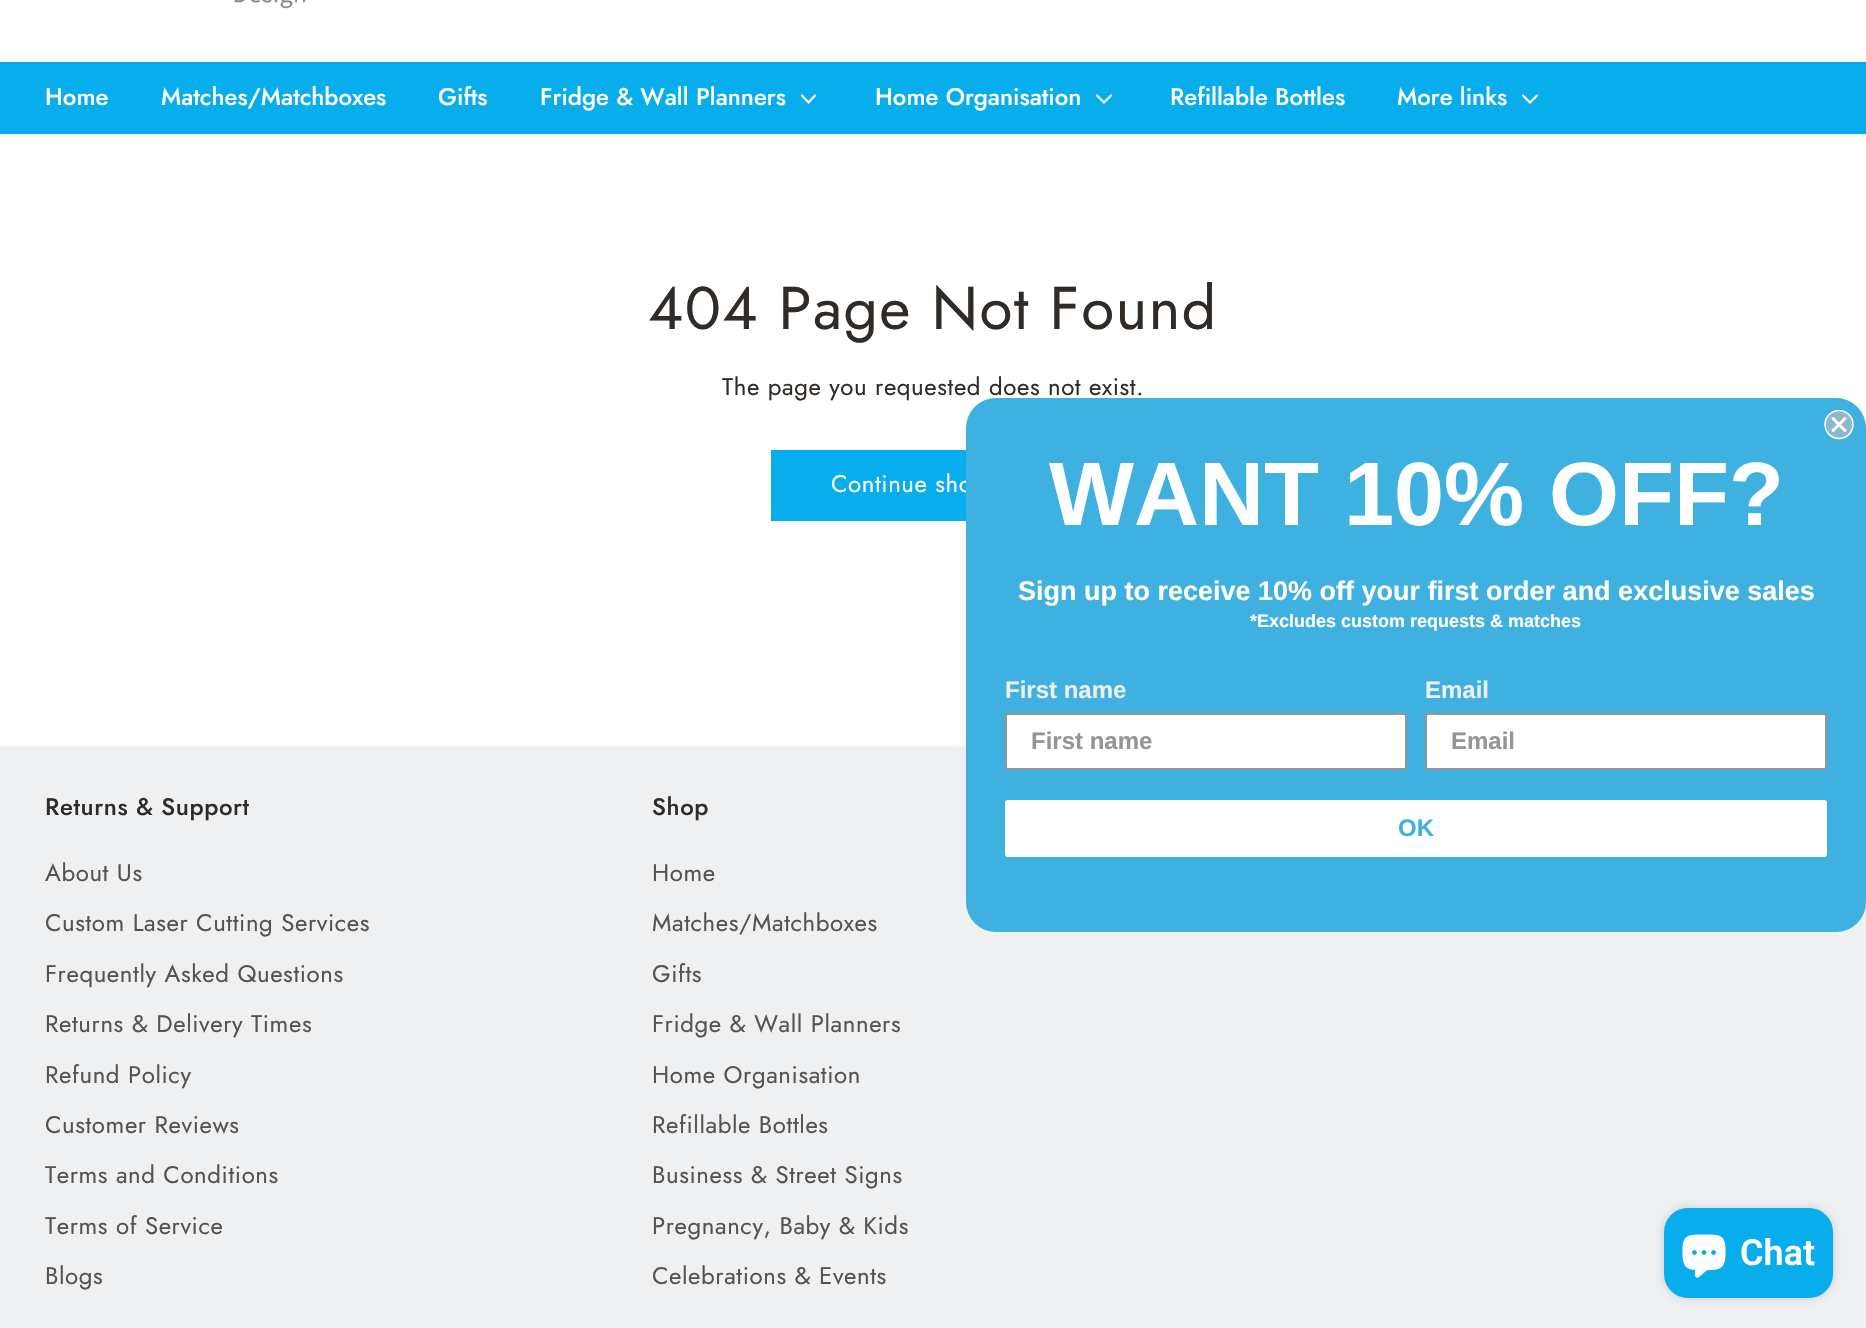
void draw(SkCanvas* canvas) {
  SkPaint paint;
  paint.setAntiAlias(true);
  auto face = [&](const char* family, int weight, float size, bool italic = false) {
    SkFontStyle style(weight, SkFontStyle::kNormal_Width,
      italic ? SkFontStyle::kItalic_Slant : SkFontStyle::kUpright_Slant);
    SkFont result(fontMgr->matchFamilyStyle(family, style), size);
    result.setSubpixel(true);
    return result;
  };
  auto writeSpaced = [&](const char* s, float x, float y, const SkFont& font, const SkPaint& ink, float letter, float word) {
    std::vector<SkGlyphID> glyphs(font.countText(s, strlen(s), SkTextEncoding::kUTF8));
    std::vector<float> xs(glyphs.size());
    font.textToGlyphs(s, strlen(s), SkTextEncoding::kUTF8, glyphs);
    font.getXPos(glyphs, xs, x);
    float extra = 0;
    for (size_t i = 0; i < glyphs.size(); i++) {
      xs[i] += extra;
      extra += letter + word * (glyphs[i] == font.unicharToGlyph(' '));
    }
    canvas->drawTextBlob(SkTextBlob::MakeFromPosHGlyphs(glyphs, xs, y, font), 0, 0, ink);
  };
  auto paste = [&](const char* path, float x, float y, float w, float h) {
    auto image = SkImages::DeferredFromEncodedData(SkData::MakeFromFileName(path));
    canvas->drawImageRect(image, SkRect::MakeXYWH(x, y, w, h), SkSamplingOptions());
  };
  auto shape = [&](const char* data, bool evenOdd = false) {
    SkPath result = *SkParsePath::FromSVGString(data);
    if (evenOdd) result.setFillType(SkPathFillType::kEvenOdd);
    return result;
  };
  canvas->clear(0xffffffff);
  paste("img/1.png", 234, 0, 72, 9);
  paint.setColor(0xff08adeb);
  canvas->drawRect(SkRect::MakeXYWH(0, 62, 1866, 72), paint);
  paint.setStroke(true);
  paint.setStrokeWidth(2.2f);
  paint.setStrokeCap(SkPaint::kRound_Cap);
  paint.setColor(0xffffffff);
  canvas->drawPath(shape("M802 95.5L808.5 102.5L815 95.5"), paint);
  canvas->drawPath(shape("M1097 95.5L1104 102.5L1111 95.5"), paint);
  canvas->drawPath(shape("M1523 95.5L1530 102.5L1537 95.5"), paint);
  paint.setStrokeWidth(2);
  paint.setStrokeCap(SkPaint::kButt_Cap);
  paint.setColor(0xff08adeb);
  canvas->drawRect(SkRect::MakeXYWH(772, 451, 322, 69), paint);
  paint.setStroke(false);
  canvas->drawRect(SkRect::MakeXYWH(773, 452, 193, 67), paint);
  paint.setColor(0xffeef0f2);
  canvas->drawRect(SkRect::MakeXYWH(0, 746, 1866, 582), paint);
  paint.setColor(0x26000000);
  paint.setMaskFilter(SkMaskFilter::MakeBlur(kNormal_SkBlurStyle, 4));
  canvas->drawRoundRect(SkRect::MakeXYWH(1664, 1208, 169, 90), 24, 24, paint);
  paint.setMaskFilter(nullptr);
  paint.setColor(0xff08adeb);
  canvas->drawRoundRect(SkRect::MakeXYWH(1664, 1208, 169, 90), 24, 24, paint);
  paste("img/2.png", 1682, 1234, 44, 44);
  auto f0 = face("Jost", 500, 24);
  paint.setColor(0xffffffff);
  {
    const struct { const char* s; float x, y; } items[] = {
      {"Home", 45, 105},
      {"Matches/Matchboxes", 161, 105},
      {"Gifts", 438, 105},
      {"Fridge & Wall Planners", 540, 105},
      {"Home Organisation", 875, 105},
      {"Refillable Bottles", 1170, 105},
      {"More links", 1397, 105},
    };
    for (auto [s, x, y] : items) {
      canvas->drawString(s, x, y, f0, paint);
    }
  }
  auto f1 = face("Jost", 400, 60.25f);
  paint.setColor(0xff302b27);
  writeSpaced("404 Page Not Found", 648, 329, f1, paint, 1.5f, 0);
  auto f2 = face("Jost", 400, 24);
  writeSpaced("The page you requested does not exist.", 722, 395, f2, paint, 0.6f, 0);
  paint.setColor(0xffffffff);
  writeSpaced("Continue sho", 831, 492, f2, paint, 0.6f, 0);
  paint.setColor(0xff3eb1e0);
  canvas->drawRoundRect(SkRect::MakeXYWH(966, 398, 900, 534), 30, 30, paint);
  paint.setColor(0xff8bb8cd);
  canvas->drawCircle(1839, 424.5f, 14, paint);
  canvas->save();
  canvas->clipRect(SkRect::MakeXYWH(1824, 410, 30, 30));
  paint.setStroke(true);
  paint.setStrokeWidth(1.5f);
  paint.setColor(0xffffffff);
  canvas->drawCircle(1839, 424.5f, 14, paint);
  canvas->restore();
  paint.setStrokeWidth(3);
  paint.setStrokeCap(SkPaint::kRound_Cap);
  paint.setStrokeJoin(SkPaint::kRound_Join);
  canvas->drawPath(shape("M1833 418.5L1845 430.5M1833 430.5L1845 418.5Z"), paint);
  auto f3 = face("Liberation Sans", 700, 90);
  paint.setStroke(false);
  canvas->drawString("WANT 10% OFF?", 1049, 525, f3, paint);
  auto f4 = face("Liberation Sans", 700, 27);
  canvas->drawString("Sign up to receive 10% off your first order and exclusive sales", 1018, 600, f4, paint);
  auto f5 = face("Liberation Sans", 700, 18);
  canvas->drawString("*Excludes custom requests & matches", 1250, 627, f5, paint);
  auto f6 = face("Liberation Sans", 700, 24);
  paint.setColor(0xffeeeeee);
  canvas->drawString("First name", 1005, 698, f6, paint);
  paint.setColor(0xffffffff);
  canvas->drawRoundRect(SkRect::MakeXYWH(1006, 714, 400, 55), 2, 2, paint);
  paint.setStroke(true);
  paint.setStrokeWidth(2);
  paint.setStrokeCap(SkPaint::kButt_Cap);
  paint.setStrokeJoin(SkPaint::kMiter_Join);
  paint.setColor(0xff949596);
  canvas->drawRoundRect(SkRect::MakeXYWH(1006, 714, 400, 55), 2, 2, paint);
  paint.setStroke(false);
  canvas->drawString("First name", 1031, 749, f6, paint);
  paint.setColor(0xffeeeeee);
  canvas->drawString("Email", 1425, 698, f6, paint);
  paint.setColor(0xffffffff);
  canvas->drawRoundRect(SkRect::MakeXYWH(1426, 714, 400, 55), 2, 2, paint);
  paint.setStroke(true);
  paint.setColor(0xff949596);
  canvas->drawRoundRect(SkRect::MakeXYWH(1426, 714, 400, 55), 2, 2, paint);
  paint.setStroke(false);
  canvas->drawString("Email", 1451, 749, f6, paint);
  paint.setColor(0xffffffff);
  canvas->drawRoundRect(SkRect::MakeXYWH(1005, 800, 822, 57), 3, 3, paint);
  paint.setColor(0xff3eb1e0);
  canvas->drawString("OK", 1398, 836, f6, paint);
  paint.setColor(0xff302b27);
  writeSpaced("Returns & Support", 45, 815, f0, paint, 0.6f, 0);
  paint.setColor(0xff565250);
  {
    const struct { const char* s; float x, y; } items[] = {
      {"About Us", 45, 881},
      {"Custom Laser Cutting Services", 45, 931},
      {"Frequently Asked Questions", 45, 982},
      {"Returns & Delivery Times", 45, 1032},
      {"Refund Policy", 45, 1083},
      {"Customer Reviews", 45, 1133},
      {"Terms and Conditions", 45, 1183},
      {"Terms of Service", 45, 1234},
      {"Blogs", 45, 1284},
    };
    for (auto [s, x, y] : items) {
      writeSpaced(s, x, y, f2, paint, 0.6f, 0);
    }
  }
  paint.setColor(0xff302b27);
  writeSpaced("Shop", 652, 815, f0, paint, 0.6f, 0);
  paint.setColor(0xff565250);
  {
    const struct { const char* s; float x, y; } items[] = {
      {"Home", 652, 881},
      {"Matches/Matchboxes", 652, 931},
      {"Gifts", 652, 982},
      {"Fridge & Wall Planners", 652, 1032},
      {"Home Organisation", 652, 1083},
      {"Refillable Bottles", 652, 1133},
      {"Business & Street Signs", 652, 1183},
      {"Pregnancy, Baby & Kids", 652, 1234},
      {"Celebrations & Events", 652, 1284},
    };
    for (auto [s, x, y] : items) {
      writeSpaced(s, x, y, f2, paint, 0.6f, 0);
    }
  }
  auto f7 = face("Roboto", 600, 36);
  paint.setColor(0xffffffff);
  canvas->drawString("Chat", 1740, 1265, f7, paint);
}
